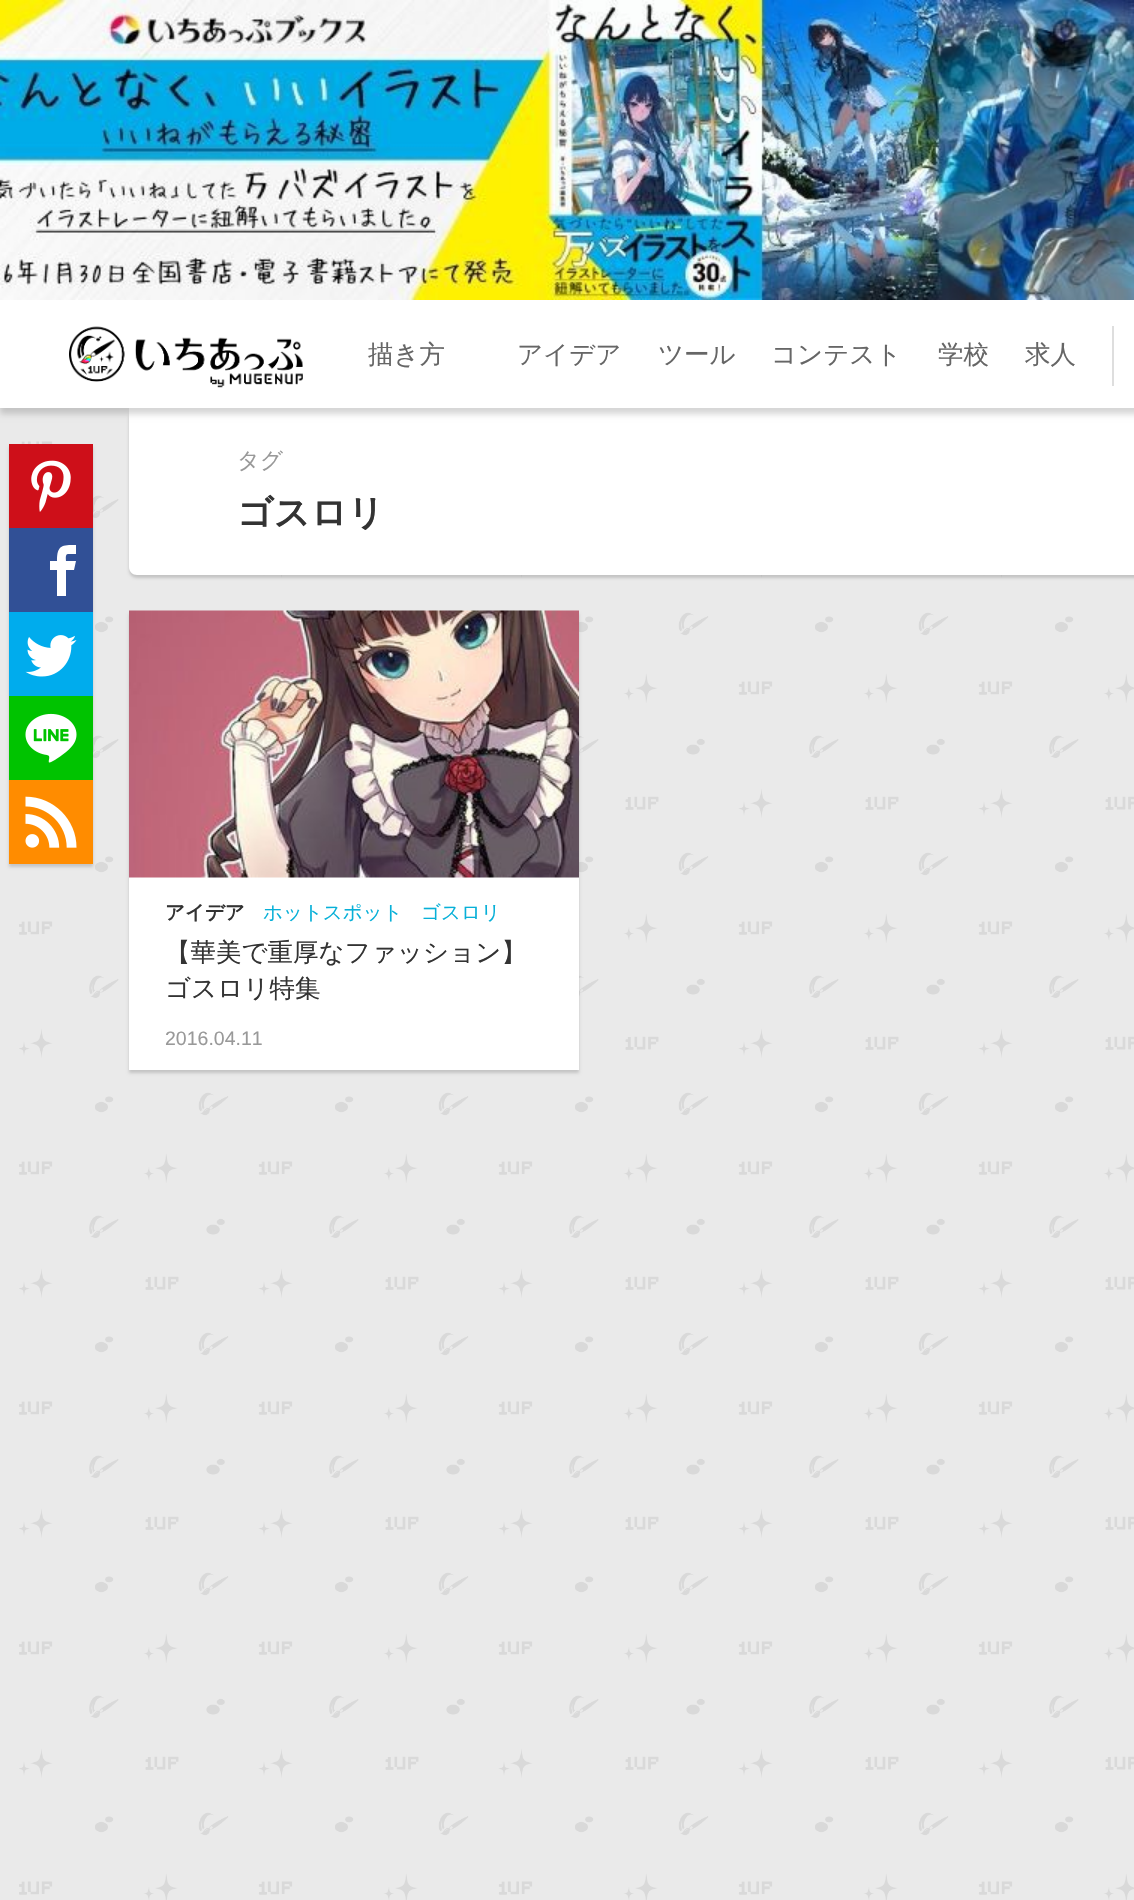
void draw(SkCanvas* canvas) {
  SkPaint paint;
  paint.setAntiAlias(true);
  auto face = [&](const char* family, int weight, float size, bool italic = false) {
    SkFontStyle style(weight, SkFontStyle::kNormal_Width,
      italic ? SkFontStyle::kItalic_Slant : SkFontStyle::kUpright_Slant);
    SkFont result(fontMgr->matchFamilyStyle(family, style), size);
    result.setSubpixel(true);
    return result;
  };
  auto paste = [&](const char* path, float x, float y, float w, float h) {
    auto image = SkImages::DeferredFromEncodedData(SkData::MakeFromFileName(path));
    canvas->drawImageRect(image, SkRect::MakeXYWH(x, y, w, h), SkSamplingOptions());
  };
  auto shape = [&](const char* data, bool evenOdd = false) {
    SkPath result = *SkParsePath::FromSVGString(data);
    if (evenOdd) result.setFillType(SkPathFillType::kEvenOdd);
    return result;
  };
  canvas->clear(0xffeaeaea);
  paste("img/1.png", 19, 408, 1115, 1492);
  paint.setColor(0x29000000);
  paint.setMaskFilter(SkMaskFilter::MakeBlur(kNormal_SkBlurStyle, 1.5f));
  canvas->drawRoundRect(SkRect::MakeXYWH(129, 411, 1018, 167), 8, 8, paint);
  paint.setMaskFilter(nullptr);
  paint.setColor(0xffffffff);
  canvas->drawPath(shape("M129 408H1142V567C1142 571.5 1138.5 575 1134 575H137C132.5 575 129 571.5 129 567Z"), paint);
  paint.setColor(0x29000000);
  paint.setMaskFilter(SkMaskFilter::MakeBlur(kNormal_SkBlurStyle, 3));
  canvas->drawRect(SkRect::MakeXYWH(0, 306, 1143, 108), paint);
  paint.setMaskFilter(nullptr);
  paste("img/2.png", 0, 0, 1134, 300);
  paint.setColor(0xffffffff);
  canvas->drawRect(SkRect::MakeXYWH(0, 300, 1134, 108), paint);
  paste("img/3.png", 69, 326, 234, 62);
  paint.setColor(0xffdedede);
  canvas->drawRect(SkRect::MakeXYWH(1112, 326, 2, 60), paint);
  paint.setColor(0x29000000);
  paint.setMaskFilter(SkMaskFilter::MakeBlur(kNormal_SkBlurStyle, 1.5f));
  canvas->drawRect(SkRect::MakeXYWH(9, 447, 84, 420), paint);
  paint.setMaskFilter(nullptr);
  paint.setColor(0xffce0f19);
  canvas->drawRect(SkRect::MakeXYWH(9, 444, 84, 84), paint);
  paste("img/4.png", 31, 460, 40, 52);
  paint.setColor(0xff315096);
  canvas->drawRect(SkRect::MakeXYWH(9, 528, 84, 84), paint);
  paint.setColor(0xffffffff);
  canvas->drawPath(shape("M68 554H76V545C62 545 57 545 57 561H50V570H57V596H66V570H74L76 561H66C66 559 65 554 68 554Z"), paint);
  paint.setColor(0xff00aced);
  canvas->drawRect(SkRect::MakeXYWH(9, 612, 84, 84), paint);
  paste("img/5.png", 25, 635, 52, 42);
  paint.setColor(0xff00c300);
  canvas->drawRect(SkRect::MakeXYWH(9, 696, 84, 84), paint);
  paste("img/6.png", 25, 713, 52, 50);
  paint.setColor(0xffff8c00);
  canvas->drawRect(SkRect::MakeXYWH(9, 780, 84, 84), paint);
  paste("img/7.png", 25, 796, 52, 52);
  paint.setColor(0x29000000);
  paint.setMaskFilter(SkMaskFilter::MakeBlur(kNormal_SkBlurStyle, 1.5f));
  canvas->drawRect(SkRect::MakeXYWH(129, 614, 450, 459), paint);
  paint.setMaskFilter(nullptr);
  paint.setColor(0xffffffff);
  canvas->drawRect(SkRect::MakeXYWH(129, 877, 450, 193), paint);
  paste("img/8.png", 129, 610, 450, 268);
  auto f0 = face("WenQuanYi Zen Hei", 500, 25.5f);
  paint.setColor(0xff666666);
  {
    const struct { const char* s; float x, y; } items[] = {
      {"描き方", 368, 363},
      {"アイデア", 517, 363},
      {"ツール", 658, 363},
      {"コンテスト", 771, 363},
      {"学校", 938, 363},
      {"求人", 1025, 363},
    };
    for (auto [s, x, y] : items) {
      canvas->drawString(s, x, y, f0, paint);
    }
  }
  auto f1 = face("WenQuanYi Zen Hei", 500, 22.5f);
  paint.setColor(0xff999999);
  canvas->drawString("タグ", 237, 468, f1, paint);
  auto f2 = face("WenQuanYi Zen Hei", 700, 36);
  paint.setColor(0xff333333);
  canvas->drawString("ゴスロリ", 237, 525, f2, paint);
  auto f3 = face("WenQuanYi Zen Hei", 700, 19.5f);
  canvas->drawString("アイデア", 165, 919, f3, paint);
  auto f4 = face("WenQuanYi Zen Hei", 500, 19.5f);
  paint.setColor(0xff07b0d8);
  canvas->drawString("ホットスポット", 263, 919, f4, paint);
  canvas->drawString("ゴスロリ", 421, 919, f4, paint);
  paint.setColor(0xff333333);
  canvas->drawString("【華美で重厚なファッション】", 165, 961, f0, paint);
  canvas->drawString("ゴスロリ特集", 165, 997, f0, paint);
  auto f5 = face("Liberation Sans", 400, 19.5f);
  paint.setColor(0xff999999);
  canvas->drawString("2016.04.11", 165, 1045, f5, paint);
}
